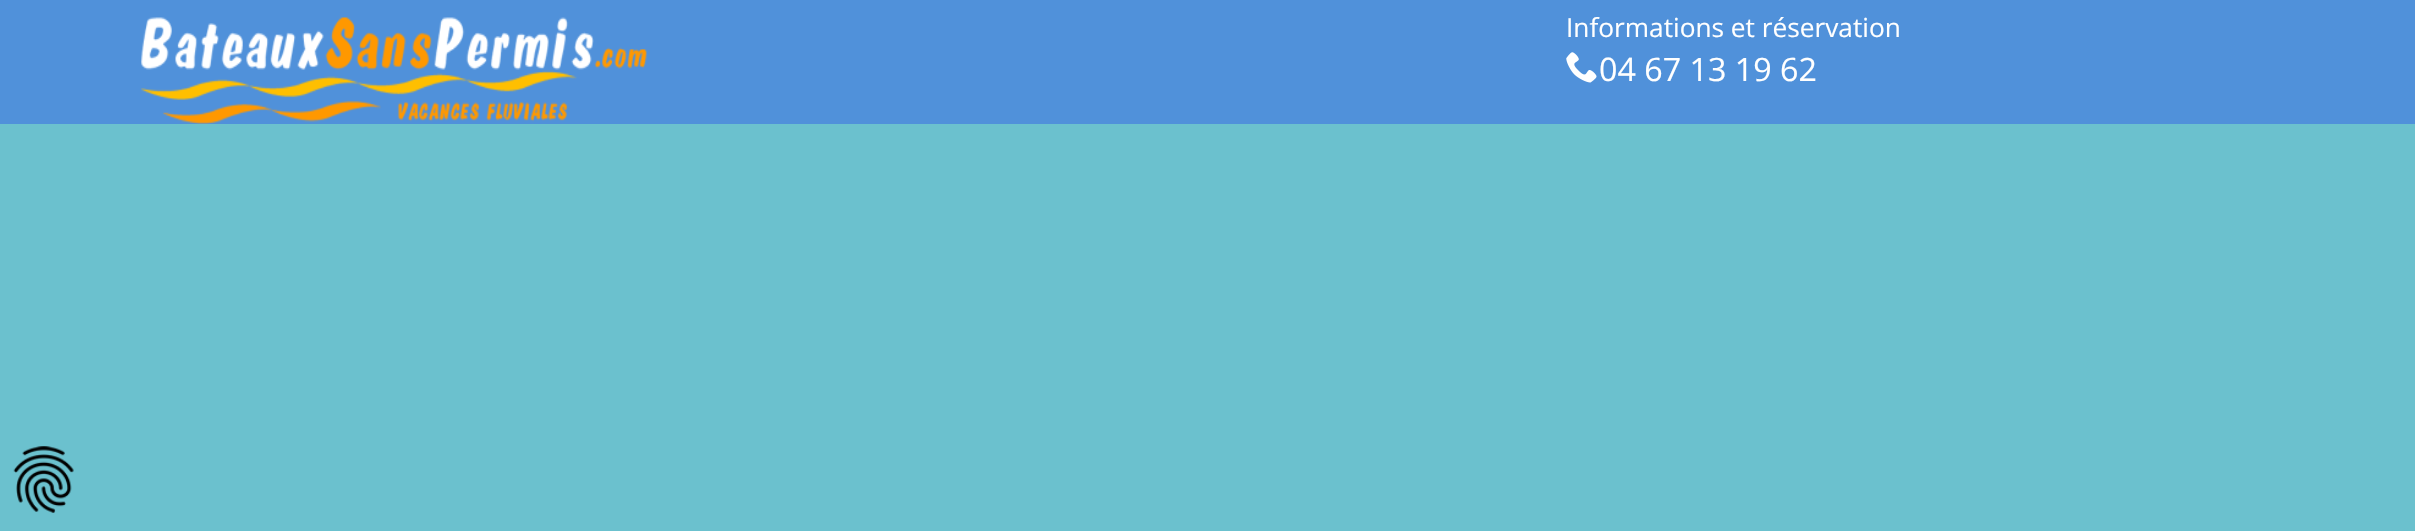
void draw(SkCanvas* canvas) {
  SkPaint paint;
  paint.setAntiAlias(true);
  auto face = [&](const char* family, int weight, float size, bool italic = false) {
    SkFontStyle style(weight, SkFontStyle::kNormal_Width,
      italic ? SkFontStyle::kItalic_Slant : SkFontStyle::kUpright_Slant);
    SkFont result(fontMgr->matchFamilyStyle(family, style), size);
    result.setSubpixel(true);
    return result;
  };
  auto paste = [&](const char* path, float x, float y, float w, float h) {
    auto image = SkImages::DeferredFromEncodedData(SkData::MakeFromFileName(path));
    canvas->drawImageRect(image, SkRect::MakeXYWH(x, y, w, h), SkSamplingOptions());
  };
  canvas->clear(0xff5091da);
  paste("img/1.png", 141, 17, 506, 107);
  paste("img/2.png", 1566, 52, 31, 31);
  paint.setColor(0xff6bc1ce);
  canvas->drawRect(SkRect::MakeXYWH(0, 124, 2415, 407), paint);
  paste("img/3.png", 13, 446, 61, 67);
  auto f0 = face("Open Sans", 400, 26.25f);
  paint.setColor(0xffffffff);
  canvas->drawString("Informations et réservation", 1566, 37, f0, paint);
  auto f1 = face("Open Sans", 400, 32.25f);
  canvas->drawString("04 67 13 19 62", 1599, 81, f1, paint);
}
